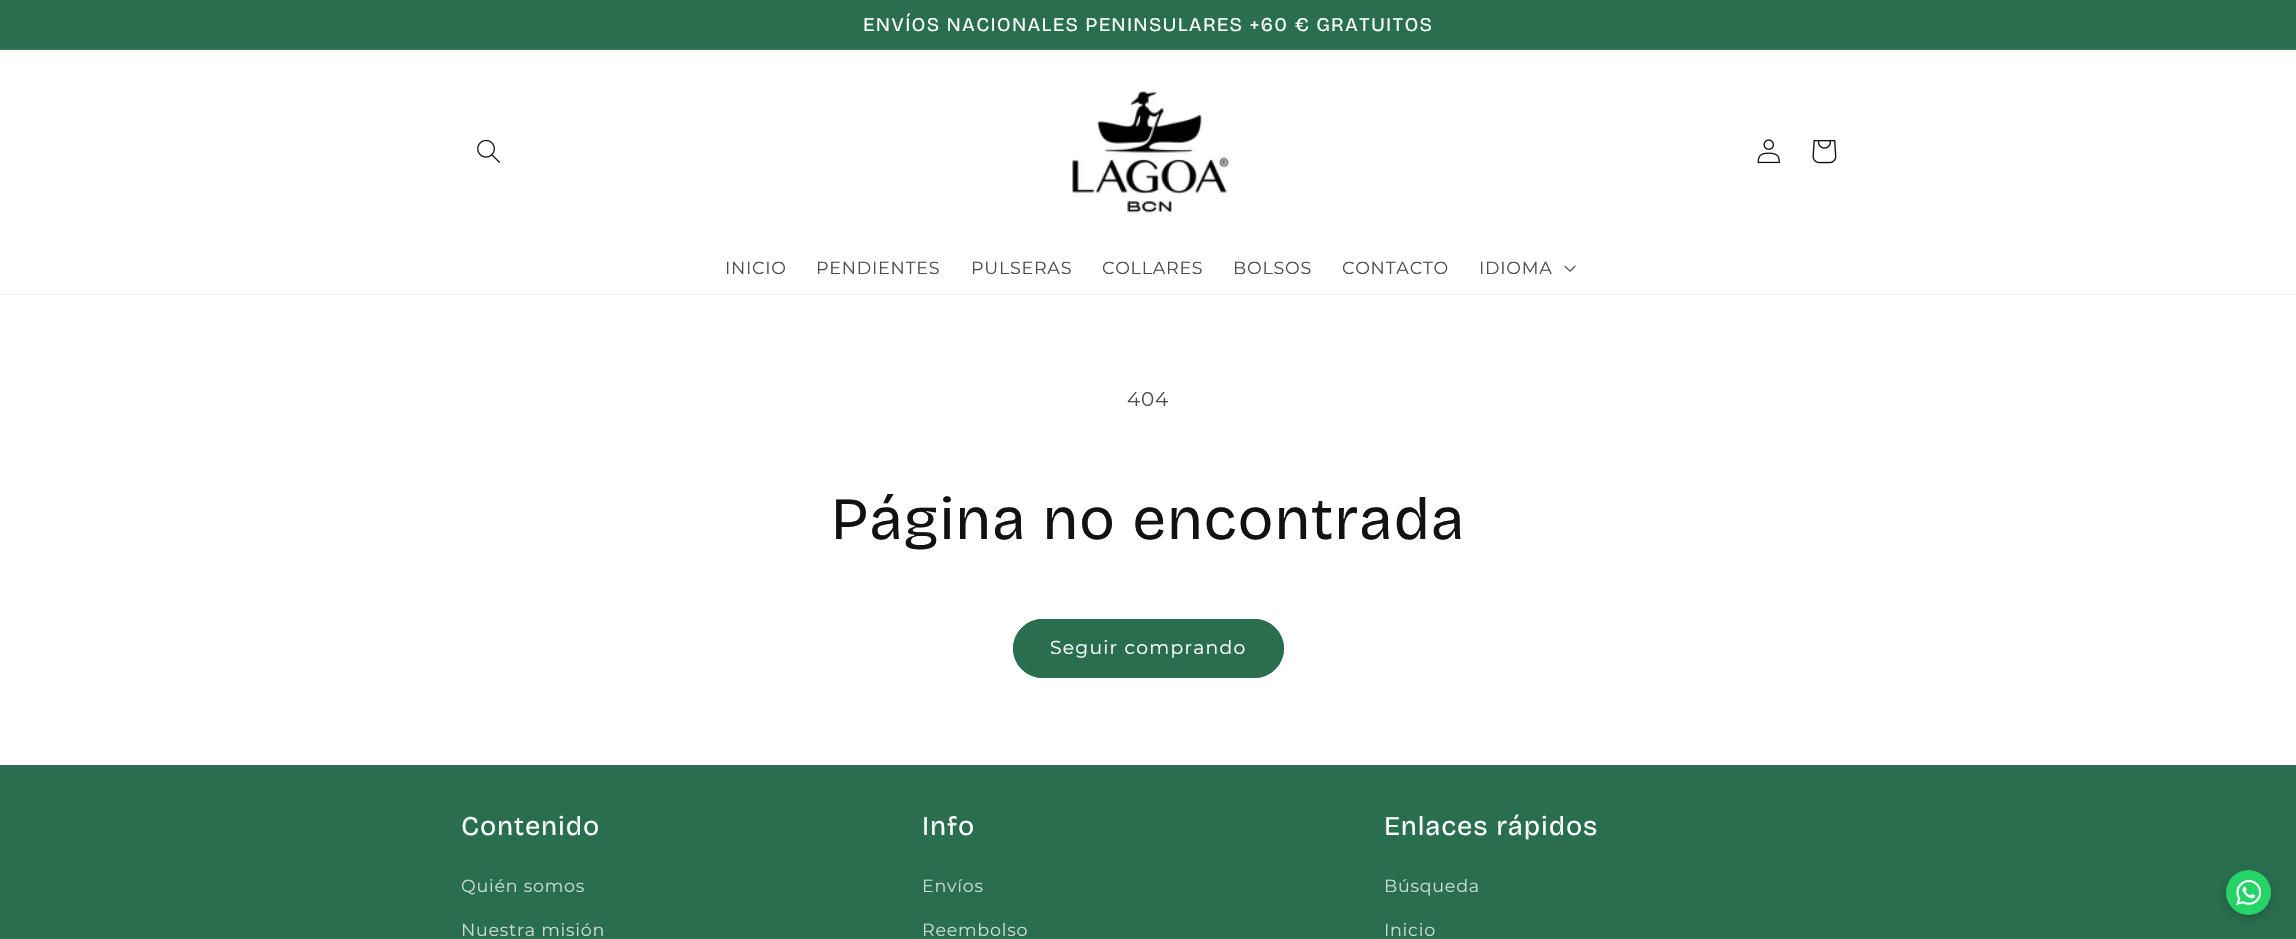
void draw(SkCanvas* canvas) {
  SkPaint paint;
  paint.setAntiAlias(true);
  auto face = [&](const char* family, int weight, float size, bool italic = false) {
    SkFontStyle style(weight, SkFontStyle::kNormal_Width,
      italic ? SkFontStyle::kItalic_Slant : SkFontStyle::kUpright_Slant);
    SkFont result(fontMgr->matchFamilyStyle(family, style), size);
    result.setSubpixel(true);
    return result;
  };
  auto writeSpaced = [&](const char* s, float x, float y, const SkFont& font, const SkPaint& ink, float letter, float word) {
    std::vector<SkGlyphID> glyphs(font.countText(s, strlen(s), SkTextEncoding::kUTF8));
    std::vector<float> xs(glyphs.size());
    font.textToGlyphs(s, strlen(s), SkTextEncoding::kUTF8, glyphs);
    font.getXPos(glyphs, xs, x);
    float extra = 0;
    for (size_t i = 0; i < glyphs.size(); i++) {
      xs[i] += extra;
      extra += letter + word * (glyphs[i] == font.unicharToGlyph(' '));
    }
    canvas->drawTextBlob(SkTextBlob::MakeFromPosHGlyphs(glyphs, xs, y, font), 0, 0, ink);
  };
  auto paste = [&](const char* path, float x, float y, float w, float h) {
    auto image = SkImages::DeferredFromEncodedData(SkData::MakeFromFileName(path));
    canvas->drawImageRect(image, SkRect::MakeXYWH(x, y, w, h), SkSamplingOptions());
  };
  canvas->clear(0xffffffff);
  {
    const struct { float x, y, w, h; SkColor color; } items[] = {
      {0, 0, 2296, 49, 0xff296e4f},
      {0, 49, 2296, 1, 0xff3a7a5d},
      {0, 294, 2296, 1, 0xffececec},
    };
    for (auto [x, y, w, h, color] : items) {
      paint.setColor(color);
      canvas->drawRect(SkRect::MakeXYWH(x, y, w, h), paint);
    }
  }
  paste("img/1.png", 477, 139, 23, 24);
  paste("img/2.png", 1072, 91, 158, 124);
  paste("img/3.png", 1757, 139, 23, 25);
  paste("img/4.png", 1812, 140, 25, 24);
  paste("img/5.png", 1564, 265, 12, 7);
  paint.setColor(0xff296e4f);
  canvas->drawRoundRect(SkRect::MakeXYWH(1013, 619, 271, 59), 29.5f, 29.5f, paint);
  paint.setStroke(true);
  paint.setStrokeWidth(1);
  canvas->drawRoundRect(SkRect::MakeXYWH(1013.5f, 619.5f, 270, 58), 29, 29, paint);
  paint.setStroke(false);
  canvas->drawRect(SkRect::MakeXYWH(0, 765, 2296, 174), paint);
  paint.setColor(0x33000000);
  paint.setMaskFilter(SkMaskFilter::MakeBlur(kNormal_SkBlurStyle, 6));
  canvas->drawRoundRect(SkRect::MakeXYWH(2226, 873, 45, 45), 22.5f, 22.5f, paint);
  paint.setMaskFilter(nullptr);
  paint.setColor(0xff25d366);
  canvas->drawCircle(2248.5f, 892.5f, 22.5f, paint);
  paste("img/6.png", 2236, 880, 25, 25);
  auto f0 = face("Bricolage Grotesque", 400, 19.5f);
  paint.setColor(0xffffffff);
  writeSpaced("ENVÍOS NACIONALES PENINSULARES +60 € GRATUITOS", 863, 31, f0, paint, 1.25f, 0);
  auto f1 = face("Montserrat", 400, 17.5f);
  paint.setColor(0xff4d4d4d);
  {
    const struct { const char* s; float x, y; } items[] = {
      {"INICIO", 725, 274},
      {"PENDIENTES", 816, 274},
      {"PULSERAS", 971, 274},
      {"COLLARES", 1102, 274},
      {"BOLSOS", 1233, 274},
      {"CONTACTO", 1342, 274},
      {"IDIOMA", 1479, 274},
    };
    for (auto [s, x, y] : items) {
      writeSpaced(s, x, y, f1, paint, 0.75f, 0);
    }
  }
  auto f2 = face("Montserrat", 400, 20);
  writeSpaced("404", 1127, 406, f2, paint, 0.75f, 0);
  auto f3 = face("Bricolage Grotesque", 400, 60);
  paint.setColor(0xff121212);
  writeSpaced("Página no encontrada", 831, 539, f3, paint, 0.9f, 0);
  auto f4 = face("Montserrat", 400, 18.75f);
  paint.setColor(0xffffffff);
  writeSpaced("Seguir comprando", 1050, 654, f4, paint, 1.25f, 0);
  auto f5 = face("Bricolage Grotesque", 400, 27);
  writeSpaced("Contenido", 461, 835, f5, paint, 0.9f, 0);
  paint.setColor(0xffcadbd3);
  writeSpaced("Quién somos", 461, 892, f1, paint, 0.75f, 0);
  writeSpaced("Nuestra misión", 461, 936, f1, paint, 0.75f, 0);
  paint.setColor(0xffffffff);
  writeSpaced("Info", 922, 835, f5, paint, 0.9f, 0);
  paint.setColor(0xffcadbd3);
  writeSpaced("Envíos", 922, 892, f1, paint, 0.75f, 0);
  writeSpaced("Reembolso", 922, 936, f1, paint, 0.75f, 0);
  paint.setColor(0xffffffff);
  writeSpaced("Enlaces rápidos", 1384, 835, f5, paint, 0.9f, 0);
  paint.setColor(0xffcadbd3);
  writeSpaced("Búsqueda", 1384, 892, f1, paint, 0.75f, 0);
  writeSpaced("Inicio", 1384, 936, f1, paint, 0.75f, 0);
}
